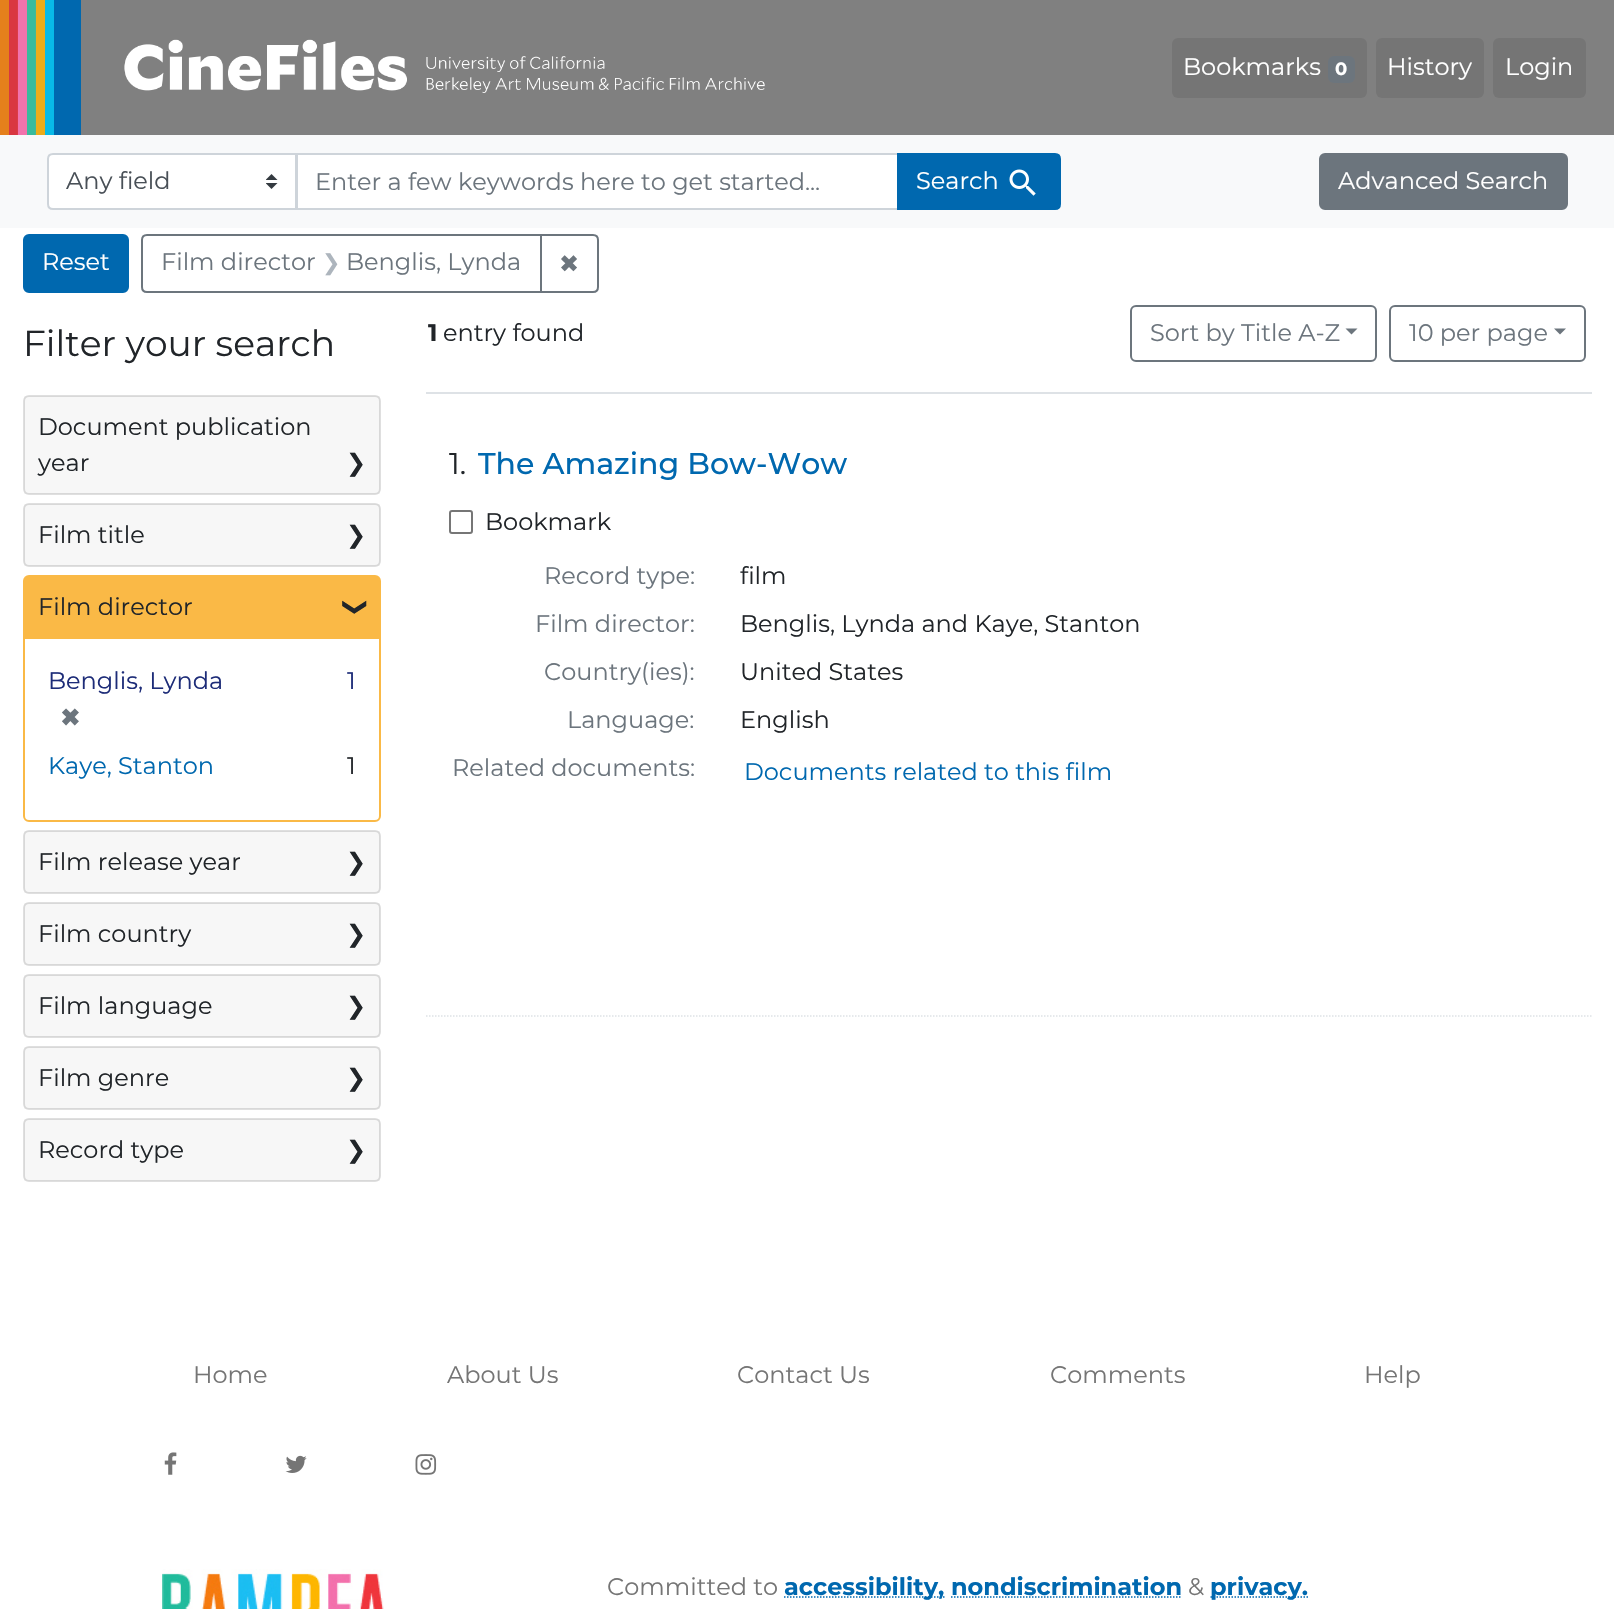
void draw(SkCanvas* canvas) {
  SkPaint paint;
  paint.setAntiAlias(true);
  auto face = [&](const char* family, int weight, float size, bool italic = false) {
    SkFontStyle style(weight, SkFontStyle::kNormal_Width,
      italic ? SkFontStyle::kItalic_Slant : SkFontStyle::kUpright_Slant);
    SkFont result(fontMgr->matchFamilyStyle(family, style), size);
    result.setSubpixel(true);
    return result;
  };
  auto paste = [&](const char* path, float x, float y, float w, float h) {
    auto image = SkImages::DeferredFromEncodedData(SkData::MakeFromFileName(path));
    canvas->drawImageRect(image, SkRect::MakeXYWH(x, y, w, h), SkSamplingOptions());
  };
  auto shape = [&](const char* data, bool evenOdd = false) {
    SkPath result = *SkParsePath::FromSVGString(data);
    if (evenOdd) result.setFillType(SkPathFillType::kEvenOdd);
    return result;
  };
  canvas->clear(0xffffffff);
  paint.setColor(0xff808080);
  canvas->drawRect(SkRect::MakeXYWH(765, 0, 849, 135), paint);
  paste("img/1.png", 0, 0, 765, 135);
  paint.setColor(0xff757575);
  canvas->drawRoundRect(SkRect::MakeXYWH(1172, 38, 195, 60), 6, 6, paint);
  paint.setColor(0xff6c757d);
  canvas->drawRoundRect(SkRect::MakeXYWH(1328, 56, 27, 27), 6, 6, paint);
  paint.setColor(0xff757575);
  canvas->drawRoundRect(SkRect::MakeXYWH(1376, 38, 108, 60), 6, 6, paint);
  canvas->drawRoundRect(SkRect::MakeXYWH(1493, 38, 93, 60), 6, 6, paint);
  paint.setColor(0xfff8f9fa);
  canvas->drawRect(SkRect::MakeXYWH(0, 135, 1614, 93), paint);
  paint.setColor(0xffffffff);
  canvas->drawPath(shape("M53 153H297V210H53C49.5 210 47 207.5 47 204V159C47 155.5 49.5 153 53 153Z"), paint);
  paste("img/2.png", 266, 174, 12, 15);
  paint.setStroke(true);
  paint.setStrokeWidth(2);
  paint.setColor(0xffced4da);
  canvas->drawPath(shape("M53 154H296V209H53C50 209 48 207 48 204V159C48 156 50 154 53 154Z"), paint);
  paint.setStroke(false);
  paint.setColor(0xffffffff);
  canvas->drawRect(SkRect::MakeXYWH(297, 154, 601, 55), paint);
  paint.setStroke(true);
  paint.setColor(0xffced4da);
  canvas->drawRect(SkRect::MakeXYWH(297, 154, 601, 55), paint);
  paint.setStroke(false);
  paint.setColor(0xff0068af);
  canvas->drawPath(shape("M898 154H1055C1058 154 1060 156 1060 159V204C1060 207 1058 209 1055 209H898Z"), paint);
  paint.setStroke(true);
  canvas->drawPath(shape("M898 154H1055C1058 154 1060 156 1060 159V204C1060 207 1058 209 1055 209H898Z"), paint);
  paste("img/3.png", 1009, 169, 27, 27);
  paint.setStroke(false);
  paint.setColor(0xff6c757d);
  canvas->drawRoundRect(SkRect::MakeXYWH(1320, 154, 247, 55), 5, 5, paint);
  paint.setStroke(true);
  canvas->drawRoundRect(SkRect::MakeXYWH(1320, 154, 247, 55), 5, 5, paint);
  paint.setStroke(false);
  paint.setColor(0xff0068af);
  canvas->drawRoundRect(SkRect::MakeXYWH(24, 235, 104, 57), 5, 5, paint);
  paint.setStroke(true);
  canvas->drawRoundRect(SkRect::MakeXYWH(24, 235, 104, 57), 5, 5, paint);
  paint.setColor(0xff6c757d);
  canvas->drawPath(shape("M147 235H541V292H147C144 292 142 290 142 287V240C142 237 144 235 147 235Z"), paint);
  canvas->drawPath(shape("M541 235H593C596 235 598 237 598 240V287C598 290 596 292 593 292H541Z"), paint);
  paint.setColor(0xffdfdfdf);
  canvas->drawRoundRect(SkRect::MakeXYWH(24, 396, 356, 98), 5, 5, paint);
  paint.setStroke(false);
  paint.setColor(0x08000000);
  canvas->drawRect(SkRect::MakeXYWH(24, 396, 356, 98), paint);
  paint.setStroke(true);
  paint.setColor(0xffdfdfdf);
  canvas->drawRoundRect(SkRect::MakeXYWH(24, 504, 356, 62), 5, 5, paint);
  paint.setStroke(false);
  paint.setColor(0x08000000);
  canvas->drawRect(SkRect::MakeXYWH(24, 504, 356, 62), paint);
  paint.setStroke(true);
  paint.setColor(0xfffab946);
  canvas->drawRoundRect(SkRect::MakeXYWH(24, 576, 356, 245), 5, 5, paint);
  paint.setStroke(false);
  canvas->drawPath(shape("M29 576H375C378 576 380 578 380 581V639H24V581C24 578 26 576 29 576Z"), paint);
  paint.setStroke(true);
  paint.setColor(0xffdfdfdf);
  canvas->drawRoundRect(SkRect::MakeXYWH(24, 831, 356, 62), 5, 5, paint);
  paint.setStroke(false);
  paint.setColor(0x08000000);
  canvas->drawRect(SkRect::MakeXYWH(24, 831, 356, 62), paint);
  paint.setStroke(true);
  paint.setColor(0xffdfdfdf);
  canvas->drawRoundRect(SkRect::MakeXYWH(24, 903, 356, 62), 5, 5, paint);
  paint.setStroke(false);
  paint.setColor(0x08000000);
  canvas->drawRect(SkRect::MakeXYWH(24, 903, 356, 62), paint);
  paint.setStroke(true);
  paint.setColor(0xffdfdfdf);
  canvas->drawRoundRect(SkRect::MakeXYWH(24, 975, 356, 62), 5, 5, paint);
  paint.setStroke(false);
  paint.setColor(0x08000000);
  canvas->drawRect(SkRect::MakeXYWH(24, 975, 356, 62), paint);
  paint.setStroke(true);
  paint.setColor(0xffdfdfdf);
  canvas->drawRoundRect(SkRect::MakeXYWH(24, 1047, 356, 62), 5, 5, paint);
  paint.setStroke(false);
  paint.setColor(0x08000000);
  canvas->drawRect(SkRect::MakeXYWH(24, 1047, 356, 62), paint);
  paint.setStroke(true);
  paint.setColor(0xffdfdfdf);
  canvas->drawRoundRect(SkRect::MakeXYWH(24, 1119, 356, 62), 5, 5, paint);
  paint.setStroke(false);
  paint.setColor(0x08000000);
  canvas->drawRect(SkRect::MakeXYWH(24, 1119, 356, 62), paint);
  paint.setColor(0xffdee2e6);
  canvas->drawRect(SkRect::MakeXYWH(426, 392, 1166, 2), paint);
  paint.setStroke(true);
  paint.setColor(0xff6c757d);
  canvas->drawRoundRect(SkRect::MakeXYWH(1131, 306, 245, 55), 5, 5, paint);
  paint.setStroke(false);
  canvas->drawPath(shape("M1345.5 328.5H1357.5L1351.5 334.5Z"), paint);
  paint.setStroke(true);
  canvas->drawRoundRect(SkRect::MakeXYWH(1390, 306, 195, 55), 5, 5, paint);
  paint.setStroke(false);
  canvas->drawPath(shape("M1554 328.5H1566L1560 334.5Z"), paint);
  paint.setStroke(true);
  paint.setStrokeWidth(1.5f);
  paint.setColor(0xffdee2e6);
  paint.setPathEffect(SkDashPathEffect::Make({{1.5f, 1.5f}}, 0));
  canvas->drawPath(shape("M426 1016H1591.5"), paint);
  paint.setPathEffect(nullptr);
  paint.setStrokeWidth(2);
  paint.setColor(0xff767676);
  canvas->drawRoundRect(SkRect::MakeXYWH(450, 511, 22, 22), 2, 2, paint);
  paste("img/4.png", 164, 1452, 13, 23);
  paste("img/5.png", 285, 1455, 22, 18);
  paste("img/6.png", 415, 1454, 22, 21);
  paste("img/7.png", 162, 1569, 222, 40);
  paint.setStrokeWidth(1.5f);
  paint.setColor(0xff0068af);
  paint.setPathEffect(SkDashPathEffect::Make({{1.5f, 1.5f}}, 0));
  canvas->drawPath(shape("M784 1597H944.5"), paint);
  paint.setPathEffect(nullptr);
  paint.setPathEffect(SkDashPathEffect::Make({{1.5f, 1.5f}}, 0));
  canvas->drawPath(shape("M951 1597H1181.5"), paint);
  paint.setPathEffect(nullptr);
  paint.setPathEffect(SkDashPathEffect::Make({{1.5f, 1.5f}}, 0));
  canvas->drawPath(shape("M1210.5 1597H1308.5"), paint);
  paint.setPathEffect(nullptr);
  auto f0 = face("Montserrat", 400, 24);
  paint.setStroke(false);
  paint.setColor(0xffffffff);
  canvas->drawString("Bookmarks", 1183, 75, f0, paint);
  auto f1 = face("Montserrat", 700, 18);
  canvas->drawString("0", 1335, 75, f1, paint);
  canvas->drawString("History", 1387, 75, f0, paint);
  canvas->drawString("Login", 1505, 75, f0, paint);
  paint.setColor(0xff495057);
  canvas->drawString("Any field", 66, 189, f0, paint);
  paint.setColor(0xff6c757d);
  canvas->drawString("Enter a few keywords here to get started...", 315, 190, f0, paint);
  paint.setColor(0xffffffff);
  {
    const struct { const char* s; float x, y; } items[] = {
      {"Search", 916, 189},
      {"Advanced Search", 1338, 189},
      {"Reset", 42, 270},
    };
    for (auto [s, x, y] : items) {
      canvas->drawString(s, x, y, f0, paint);
    }
  }
  paint.setColor(0xff6c757d);
  canvas->drawString("Film director", 161, 270, f0, paint);
  auto f2 = face("DejaVu Sans", 400, 22);
  paint.setColor(0xffadb5bd);
  canvas->drawString("❯", 322, 270, f2, paint);
  paint.setColor(0xff6c757d);
  canvas->drawString("Benglis, Lynda", 346, 270, f0, paint);
  auto f3 = face("DejaVu Sans", 400, 24);
  canvas->drawString("✖", 559, 272, f3, paint);
  auto f4 = face("Montserrat", 400, 36);
  paint.setColor(0xff212529);
  canvas->drawString("Filter your search", 23, 356, f4, paint);
  canvas->drawString("Document publication", 38, 435, f0, paint);
  canvas->drawString("year", 38, 471, f0, paint);
  canvas->drawString("❯", 346, 471, f3, paint);
  canvas->drawString("Film title", 38, 543, f0, paint);
  canvas->drawString("❯", 346, 543, f3, paint);
  canvas->drawString("Film director", 38, 615, f0, paint);
  canvas->save();
  canvas->rotate(90, 348, 597);
  canvas->drawString("❯", 348, 597, f3, paint);
  canvas->restore();
  paint.setColor(0xff1d2c78);
  canvas->drawString("Benglis, Lynda", 48, 689, f0, paint);
  auto f5 = face("DejaVu Sans", 700, 24);
  paint.setColor(0xff6c757d);
  canvas->drawString("✖", 60, 726, f5, paint);
  paint.setColor(0xff1d2c78);
  canvas->drawString("1", 347, 689, f0, paint);
  paint.setColor(0xff0068af);
  canvas->drawString("Kaye, Stanton", 48, 774, f0, paint);
  paint.setColor(0xff212529);
  canvas->drawString("1", 347, 774, f0, paint);
  canvas->drawString("Film release year", 38, 870, f0, paint);
  canvas->drawString("❯", 346, 870, f3, paint);
  canvas->drawString("Film country", 38, 942, f0, paint);
  canvas->drawString("❯", 346, 942, f3, paint);
  canvas->drawString("Film language", 38, 1014, f0, paint);
  canvas->drawString("❯", 346, 1014, f3, paint);
  canvas->drawString("Film genre", 38, 1086, f0, paint);
  canvas->drawString("❯", 346, 1086, f3, paint);
  canvas->drawString("Record type", 38, 1158, f0, paint);
  canvas->drawString("❯", 346, 1158, f3, paint);
  auto f6 = face("Montserrat", 700, 24);
  canvas->drawString("1", 428, 341, f6, paint);
  canvas->drawString("entry found", 443, 341, f0, paint);
  paint.setColor(0xff6c757d);
  canvas->drawString("Sort by Title A-Z", 1150, 341, f0, paint);
  canvas->drawString("10 per page", 1409, 341, f0, paint);
  auto f7 = face("Montserrat", 400, 30);
  paint.setColor(0xff212529);
  canvas->drawString("1.", 449, 474, f7, paint);
  auto f8 = face("Montserrat", 500, 30);
  paint.setColor(0xff0068af);
  canvas->drawString("The Amazing Bow-Wow", 478, 474, f8, paint);
  paint.setColor(0xff212529);
  canvas->drawString("Bookmark", 485, 530, f0, paint);
  paint.setColor(0xff6c757d);
  canvas->drawString("Record type:", 544, 584, f0, paint);
  paint.setColor(0xff212529);
  canvas->drawString("film", 740, 584, f0, paint);
  paint.setColor(0xff6c757d);
  canvas->drawString("Film director:", 535, 632, f0, paint);
  paint.setColor(0xff212529);
  canvas->drawString("Benglis, Lynda and Kaye, Stanton", 740, 632, f0, paint);
  paint.setColor(0xff6c757d);
  canvas->drawString("Country(ies):", 544, 680, f0, paint);
  paint.setColor(0xff212529);
  canvas->drawString("United States", 740, 680, f0, paint);
  paint.setColor(0xff6c757d);
  canvas->drawString("Language:", 567, 728, f0, paint);
  paint.setColor(0xff212529);
  canvas->drawString("English", 740, 728, f0, paint);
  paint.setColor(0xff6c757d);
  canvas->drawString("Related documents:", 452, 776, f0, paint);
  paint.setColor(0xff0068af);
  canvas->drawString("Documents related to this film", 744, 780, f0, paint);
  paint.setColor(0xff757575);
  {
    const struct { const char* s; float x, y; } items[] = {
      {"Home", 193, 1383},
      {"About Us", 447, 1383},
      {"Contact Us", 737, 1383},
      {"Comments", 1050, 1383},
      {"Help", 1364, 1383},
      {"Committed to", 607, 1595},
    };
    for (auto [s, x, y] : items) {
      canvas->drawString(s, x, y, f0, paint);
    }
  }
  paint.setColor(0xff0068af);
  canvas->drawString("accessibility,", 784, 1595, f6, paint);
  canvas->drawString("nondiscrimination", 951, 1595, f6, paint);
  paint.setColor(0xff757575);
  canvas->drawString("&", 1188, 1595, f0, paint);
  paint.setColor(0xff0068af);
  canvas->drawString("privacy.", 1210, 1595, f6, paint);
}
